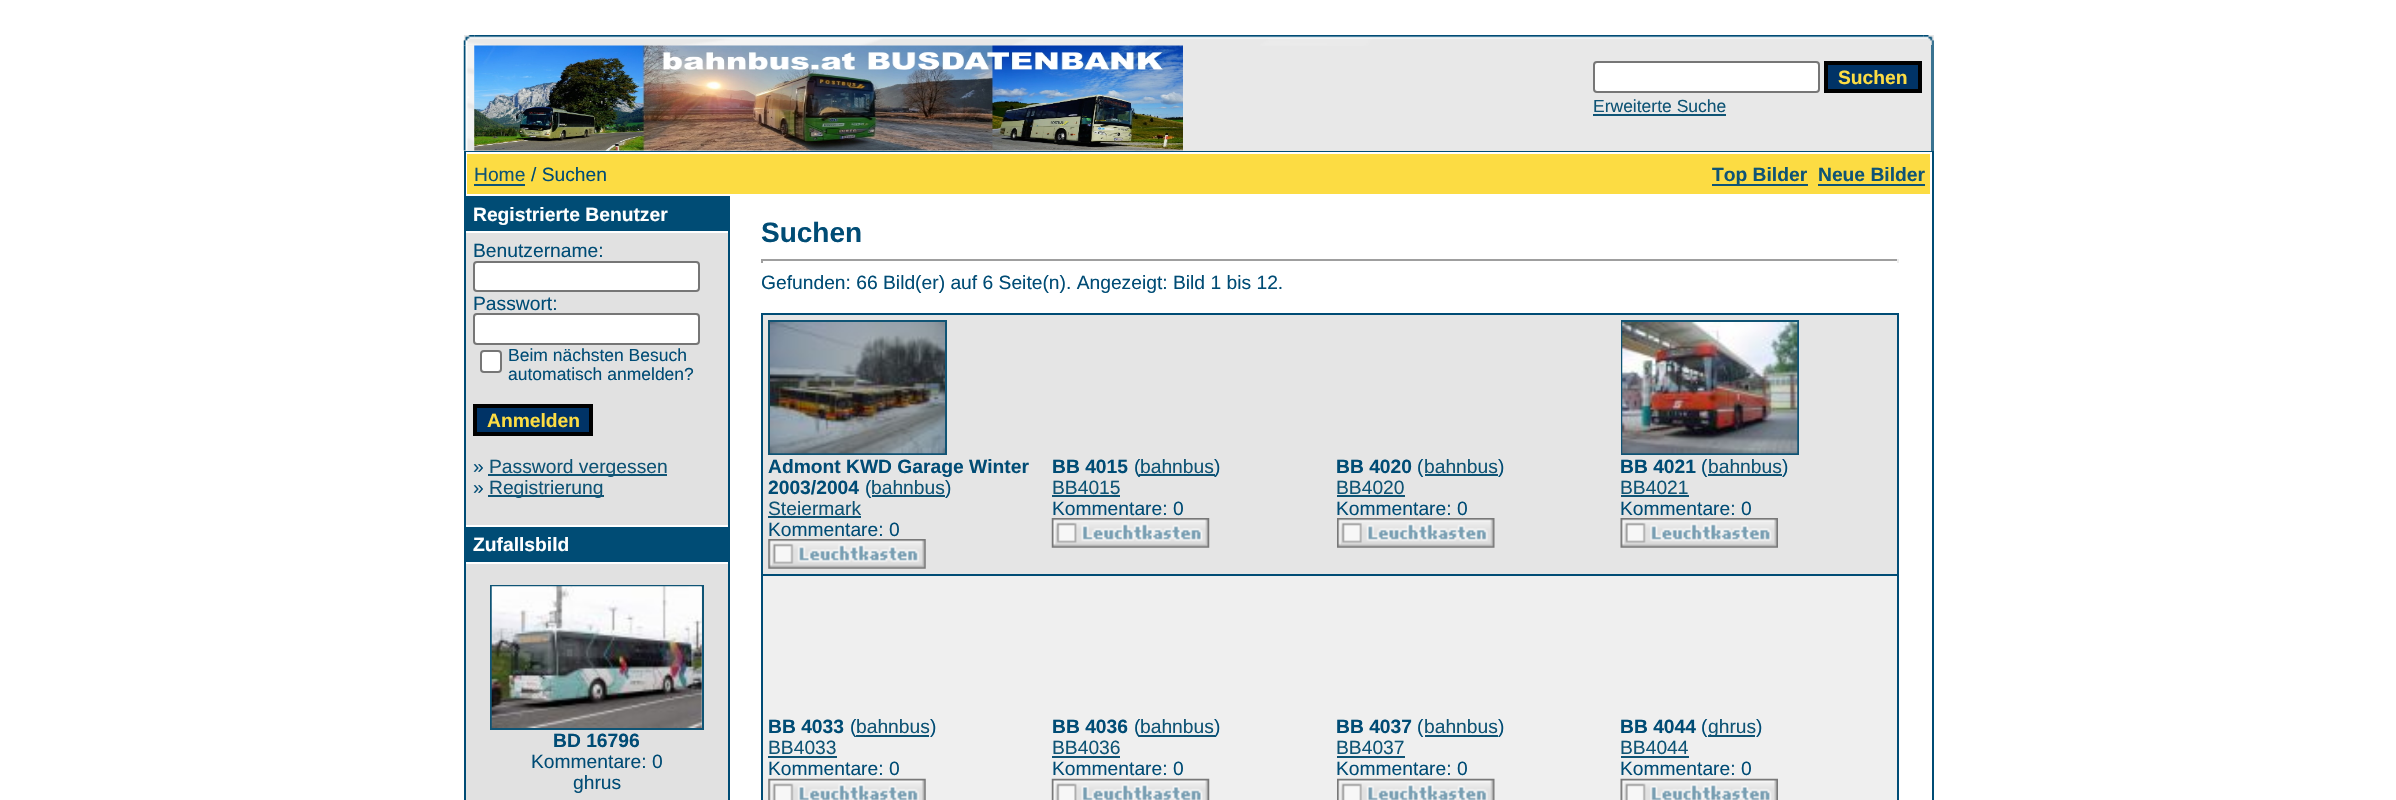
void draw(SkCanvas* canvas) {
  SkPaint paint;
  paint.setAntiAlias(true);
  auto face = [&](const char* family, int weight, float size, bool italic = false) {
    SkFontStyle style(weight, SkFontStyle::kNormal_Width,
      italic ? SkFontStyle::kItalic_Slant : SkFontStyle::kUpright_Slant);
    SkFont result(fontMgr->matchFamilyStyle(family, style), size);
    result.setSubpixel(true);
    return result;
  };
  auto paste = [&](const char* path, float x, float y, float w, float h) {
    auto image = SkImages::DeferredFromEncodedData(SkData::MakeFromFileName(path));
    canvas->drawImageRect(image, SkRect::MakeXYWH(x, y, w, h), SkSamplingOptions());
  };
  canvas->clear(0xffffffff);
  paint.setColor(0xffe8e8e8);
  canvas->drawRect(SkRect::MakeXYWH(464, 35, 1470, 116), paint);
  paste("img/1.png", 463, 35, 12, 11);
  paste("img/2.png", 474, 35, 1450, 11);
  paste("img/3.png", 1923, 35, 11, 11);
  paste("img/4.png", 463, 45, 11, 106);
  paste("img/5.png", 474, 45, 709, 106);
  paint.setColor(0xffffffff);
  canvas->drawRoundRect(SkRect::MakeXYWH(1594, 62, 225, 30), 3, 3, paint);
  paint.setStroke(true);
  paint.setStrokeWidth(2);
  paint.setColor(0xff767676);
  canvas->drawRoundRect(SkRect::MakeXYWH(1594, 62, 225, 30), 3, 3, paint);
  paint.setStroke(false);
  paint.setColor(0xff003366);
  canvas->drawRect(SkRect::MakeXYWH(1826, 63, 94, 28), paint);
  paint.setStroke(true);
  paint.setStrokeWidth(4);
  paint.setColor(0xff000000);
  canvas->drawRect(SkRect::MakeXYWH(1826, 63, 94, 28), paint);
  paint.setStroke(false);
  {
    const struct { float x, y, w, h; SkColor color; } items[] = {
      {1593, 114, 133, 2, 0xff0f5475},
      {1931, 45, 3, 106, 0xff3a7391},
      {464, 151, 1470, 649, 0xff004c75},
      {466, 152, 1466, 648, 0xffffffff},
      {467, 154, 1463, 40, 0xfffcdc43},
      {474, 184, 51, 2, 0xff0f5475},
      {1712, 184, 96, 2, 0xff0f5475},
      {1818, 184, 107, 2, 0xff0f5475},
      {466, 196, 262, 35, 0xff004c75},
      {466, 233, 262, 292, 0xffe1e1e1},
    };
    for (auto [x, y, w, h, color] : items) {
      paint.setColor(color);
      canvas->drawRect(SkRect::MakeXYWH(x, y, w, h), paint);
    }
  }
  paint.setColor(0xffffffff);
  canvas->drawRoundRect(SkRect::MakeXYWH(474, 262, 225, 29), 3, 3, paint);
  paint.setStroke(true);
  paint.setStrokeWidth(2);
  paint.setColor(0xff767676);
  canvas->drawRoundRect(SkRect::MakeXYWH(474, 262, 225, 29), 3, 3, paint);
  paint.setStroke(false);
  paint.setColor(0xffffffff);
  canvas->drawRoundRect(SkRect::MakeXYWH(474, 314, 225, 30), 3, 3, paint);
  paint.setStroke(true);
  paint.setColor(0xff767676);
  canvas->drawRoundRect(SkRect::MakeXYWH(474, 314, 225, 30), 3, 3, paint);
  paint.setStroke(false);
  paint.setColor(0xffffffff);
  canvas->drawRoundRect(SkRect::MakeXYWH(481, 351, 20, 21), 3, 3, paint);
  paint.setStroke(true);
  paint.setColor(0xff767676);
  canvas->drawRoundRect(SkRect::MakeXYWH(481, 351, 20, 21), 3, 3, paint);
  paint.setStroke(false);
  paint.setColor(0xff003366);
  canvas->drawRect(SkRect::MakeXYWH(475, 406, 116, 28), paint);
  paint.setStroke(true);
  paint.setStrokeWidth(4);
  paint.setColor(0xff000000);
  canvas->drawRect(SkRect::MakeXYWH(475, 406, 116, 28), paint);
  paint.setStroke(false);
  {
    const struct { float x, y, w, h; SkColor color; } items[] = {
      {488, 474, 179, 2, 0xff0f5475},
      {488, 495, 116, 2, 0xff0f5475},
      {466, 527, 262, 35, 0xff004c75},
      {466, 564, 262, 236, 0xffe1e1e1},
    };
    for (auto [x, y, w, h, color] : items) {
      paint.setColor(color);
      canvas->drawRect(SkRect::MakeXYWH(x, y, w, h), paint);
    }
  }
  paint.setStroke(true);
  paint.setStrokeWidth(2);
  paint.setColor(0xff0f5475);
  canvas->drawRect(SkRect::MakeXYWH(491, 586, 212, 143), paint);
  paste("img/6.png", 491, 586, 211, 142);
  paint.setStroke(false);
  {
    const struct { float x, y, w, h; SkColor color; } items[] = {
      {728, 196, 2, 604, 0xff004c75},
      {761, 259, 1138, 2, 0xff9f9f9f},
      {1897, 259, 2, 4, 0xffeeeeee},
      {761, 259, 2, 4, 0xff9f9f9f},
      {761, 313, 1138, 487, 0xff004c75},
      {763, 315, 1134, 259, 0xffe5e5e5},
    };
    for (auto [x, y, w, h, color] : items) {
      paint.setColor(color);
      canvas->drawRect(SkRect::MakeXYWH(x, y, w, h), paint);
    }
  }
  paint.setStroke(true);
  paint.setColor(0xff0f5475);
  canvas->drawRect(SkRect::MakeXYWH(769, 321, 177, 133), paint);
  paste("img/7.png", 770, 322, 175, 132);
  paint.setStroke(false);
  canvas->drawRect(SkRect::MakeXYWH(872, 495, 73, 2), paint);
  canvas->drawRect(SkRect::MakeXYWH(768, 516, 93, 2), paint);
  paste("img/8.png", 768, 539, 158, 30);
  canvas->drawRect(SkRect::MakeXYWH(1052, 495, 68, 2), paint);
  paste("img/9.png", 1051, 518, 159, 30);
  canvas->drawRect(SkRect::MakeXYWH(1425, 474, 73, 2), paint);
  canvas->drawRect(SkRect::MakeXYWH(1337, 495, 68, 2), paint);
  paste("img/10.png", 1337, 518, 158, 30);
  paint.setStroke(true);
  canvas->drawRect(SkRect::MakeXYWH(1622, 321, 176, 133), paint);
  paste("img/11.png", 1622, 322, 176, 132);
  paint.setStroke(false);
  canvas->drawRect(SkRect::MakeXYWH(1708, 474, 74, 2), paint);
  canvas->drawRect(SkRect::MakeXYWH(1621, 495, 68, 2), paint);
  paste("img/12.png", 1620, 518, 158, 30);
  {
    const struct { float x, y, w, h; SkColor color; } items[] = {
      {763, 576, 1134, 224, 0xffefefef},
      {856, 735, 73, 2, 0xff0f5475},
      {768, 756, 69, 2, 0xff0f5475},
    };
    for (auto [x, y, w, h, color] : items) {
      paint.setColor(color);
      canvas->drawRect(SkRect::MakeXYWH(x, y, w, h), paint);
    }
  }
  paste("img/13.png", 768, 778, 158, 22);
  canvas->drawRect(SkRect::MakeXYWH(1052, 756, 68, 2), paint);
  paste("img/14.png", 1051, 778, 159, 22);
  canvas->drawRect(SkRect::MakeXYWH(1425, 735, 73, 2), paint);
  canvas->drawRect(SkRect::MakeXYWH(1337, 756, 68, 2), paint);
  paste("img/15.png", 1337, 778, 158, 22);
  canvas->drawRect(SkRect::MakeXYWH(1708, 735, 47, 2), paint);
  canvas->drawRect(SkRect::MakeXYWH(1621, 756, 68, 2), paint);
  paste("img/16.png", 1620, 778, 158, 22);
  auto f0 = face("Liberation Sans", 700, 19.25f);
  paint.setColor(0xfffcdc43);
  canvas->drawString("Suchen", 1838, 84, f0, paint);
  auto f1 = face("Liberation Sans", 400, 17.5f);
  paint.setColor(0xff0f5475);
  canvas->drawString("Erweiterte Suche", 1593, 112, f1, paint);
  auto f2 = face("Liberation Sans", 400, 19.25f);
  canvas->drawString("Home", 474, 181, f2, paint);
  paint.setColor(0xff004c75);
  canvas->drawString("/ Suchen", 531, 181, f2, paint);
  paint.setColor(0xff0f5475);
  canvas->drawString("Top Bilder", 1712, 181, f0, paint);
  canvas->drawString("Neue Bilder", 1818, 181, f0, paint);
  paint.setColor(0xffffffff);
  canvas->drawString("Registrierte Benutzer", 473, 221, f0, paint);
  paint.setColor(0xff004c75);
  canvas->drawString("Benutzername:", 473, 257, f2, paint);
  canvas->drawString("Passwort:", 473, 310, f2, paint);
  canvas->drawString("Beim nächsten Besuch", 508, 361, f1, paint);
  canvas->drawString("automatisch anmelden?", 508, 380, f1, paint);
  paint.setColor(0xfffcdc43);
  canvas->drawString("Anmelden", 487, 427, f0, paint);
  paint.setColor(0xff004c75);
  canvas->drawString("»", 473, 473, f2, paint);
  paint.setColor(0xff0f5475);
  canvas->drawString("Password vergessen", 489, 473, f2, paint);
  paint.setColor(0xff004c75);
  canvas->drawString("»", 473, 494, f2, paint);
  paint.setColor(0xff0f5475);
  canvas->drawString("Registrierung", 489, 494, f2, paint);
  paint.setColor(0xffffffff);
  canvas->drawString("Zufallsbild", 473, 551, f0, paint);
  paint.setColor(0xff004c75);
  canvas->drawString("BD 16796", 553, 747, f0, paint);
  canvas->drawString("Kommentare: 0", 531, 768, f2, paint);
  canvas->drawString("ghrus", 573, 789, f2, paint);
  auto f3 = face("Liberation Sans", 700, 28);
  canvas->drawString("Suchen", 761, 242, f3, paint);
  canvas->drawString("Gefunden: 66 Bild(er) auf 6 Seite(n). Angezeigt: Bild 1 bis 12.", 761, 289, f2, paint);
  canvas->drawString("Admont KWD Garage Winter", 768, 473, f0, paint);
  canvas->drawString("2003/2004", 768, 494, f0, paint);
  canvas->drawString("(", 865, 494, f2, paint);
  paint.setColor(0xff0f5475);
  canvas->drawString("bahnbus", 871, 494, f2, paint);
  paint.setColor(0xff004c75);
  canvas->drawString(")", 945, 494, f2, paint);
  paint.setColor(0xff0f5475);
  canvas->drawString("Steiermark", 768, 515, f2, paint);
  paint.setColor(0xff004c75);
  canvas->drawString("Kommentare: 0", 768, 536, f2, paint);
  canvas->drawString("BB 4015", 1052, 473, f0, paint);
  canvas->drawString("(", 1134, 473, f2, paint);
  paint.setColor(0xff0f5475);
  canvas->drawString("bahnbus", 1140, 473, f2, paint);
  canvas->drawRect(SkRect::MakeXYWH(1139, 474, 76, 2), paint);
  paint.setColor(0xff004c75);
  canvas->drawString(")", 1214, 473, f2, paint);
  paint.setColor(0xff0f5475);
  canvas->drawString("BB4015", 1052, 494, f2, paint);
  paint.setColor(0xff004c75);
  canvas->drawString("Kommentare: 0", 1052, 515, f2, paint);
  canvas->drawString("BB 4020", 1336, 473, f0, paint);
  canvas->drawString("(", 1417, 473, f2, paint);
  paint.setColor(0xff0f5475);
  canvas->drawString("bahnbus", 1424, 473, f2, paint);
  paint.setColor(0xff004c75);
  canvas->drawString(")", 1498, 473, f2, paint);
  paint.setColor(0xff0f5475);
  canvas->drawString("BB4020", 1336, 494, f2, paint);
  paint.setColor(0xff004c75);
  canvas->drawString("Kommentare: 0", 1336, 515, f2, paint);
  canvas->drawString("BB 4021", 1620, 473, f0, paint);
  canvas->drawString("(", 1701, 473, f2, paint);
  paint.setColor(0xff0f5475);
  canvas->drawString("bahnbus", 1708, 473, f2, paint);
  paint.setColor(0xff004c75);
  canvas->drawString(")", 1782, 473, f2, paint);
  paint.setColor(0xff0f5475);
  canvas->drawString("BB4021", 1620, 494, f2, paint);
  paint.setColor(0xff004c75);
  canvas->drawString("Kommentare: 0", 1620, 515, f2, paint);
  canvas->drawString("BB 4033", 768, 733, f0, paint);
  canvas->drawString("(", 850, 733, f2, paint);
  paint.setColor(0xff0f5475);
  canvas->drawString("bahnbus", 856, 733, f2, paint);
  paint.setColor(0xff004c75);
  canvas->drawString(")", 930, 733, f2, paint);
  paint.setColor(0xff0f5475);
  canvas->drawString("BB4033", 768, 754, f2, paint);
  paint.setColor(0xff004c75);
  canvas->drawString("Kommentare: 0", 768, 775, f2, paint);
  canvas->drawString("BB 4036", 1052, 733, f0, paint);
  canvas->drawString("(", 1134, 733, f2, paint);
  paint.setColor(0xff0f5475);
  canvas->drawString("bahnbus", 1140, 733, f2, paint);
  canvas->drawRect(SkRect::MakeXYWH(1139, 735, 76, 2), paint);
  paint.setColor(0xff004c75);
  canvas->drawString(")", 1214, 733, f2, paint);
  paint.setColor(0xff0f5475);
  canvas->drawString("BB4036", 1052, 754, f2, paint);
  paint.setColor(0xff004c75);
  canvas->drawString("Kommentare: 0", 1052, 775, f2, paint);
  canvas->drawString("BB 4037", 1336, 733, f0, paint);
  canvas->drawString("(", 1417, 733, f2, paint);
  paint.setColor(0xff0f5475);
  canvas->drawString("bahnbus", 1424, 733, f2, paint);
  paint.setColor(0xff004c75);
  canvas->drawString(")", 1498, 733, f2, paint);
  paint.setColor(0xff0f5475);
  canvas->drawString("BB4037", 1336, 754, f2, paint);
  paint.setColor(0xff004c75);
  canvas->drawString("Kommentare: 0", 1336, 775, f2, paint);
  canvas->drawString("BB 4044", 1620, 733, f0, paint);
  canvas->drawString("(", 1701, 733, f2, paint);
  paint.setColor(0xff0f5475);
  canvas->drawString("ghrus", 1708, 733, f2, paint);
  paint.setColor(0xff004c75);
  canvas->drawString(")", 1756, 733, f2, paint);
  paint.setColor(0xff0f5475);
  canvas->drawString("BB4044", 1620, 754, f2, paint);
  paint.setColor(0xff004c75);
  canvas->drawString("Kommentare: 0", 1620, 775, f2, paint);
}
